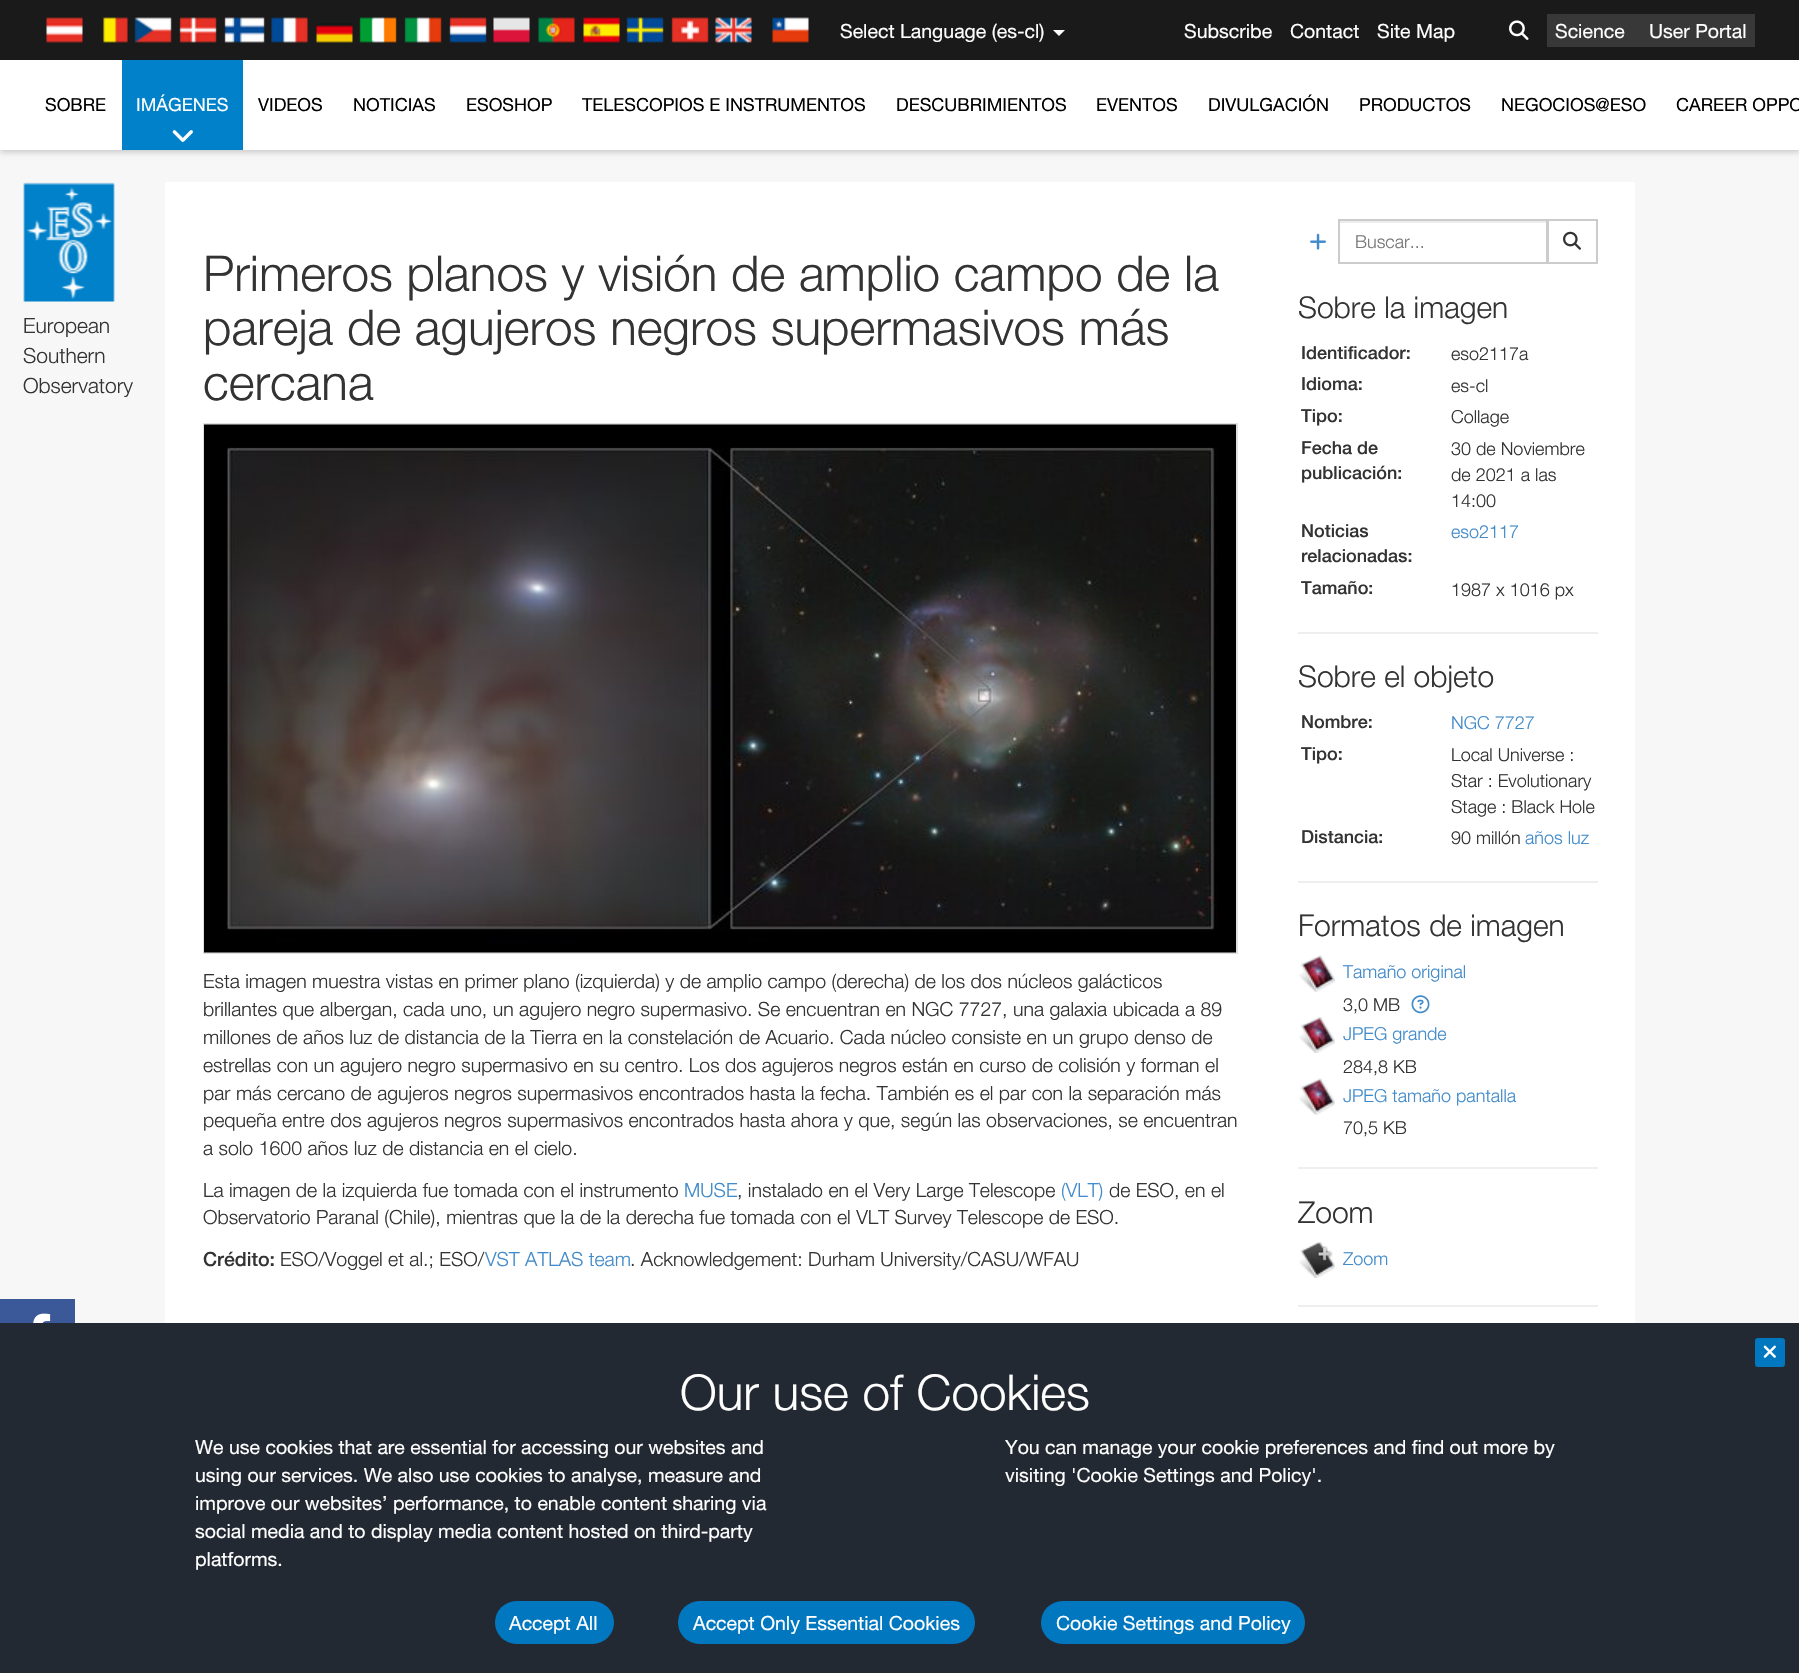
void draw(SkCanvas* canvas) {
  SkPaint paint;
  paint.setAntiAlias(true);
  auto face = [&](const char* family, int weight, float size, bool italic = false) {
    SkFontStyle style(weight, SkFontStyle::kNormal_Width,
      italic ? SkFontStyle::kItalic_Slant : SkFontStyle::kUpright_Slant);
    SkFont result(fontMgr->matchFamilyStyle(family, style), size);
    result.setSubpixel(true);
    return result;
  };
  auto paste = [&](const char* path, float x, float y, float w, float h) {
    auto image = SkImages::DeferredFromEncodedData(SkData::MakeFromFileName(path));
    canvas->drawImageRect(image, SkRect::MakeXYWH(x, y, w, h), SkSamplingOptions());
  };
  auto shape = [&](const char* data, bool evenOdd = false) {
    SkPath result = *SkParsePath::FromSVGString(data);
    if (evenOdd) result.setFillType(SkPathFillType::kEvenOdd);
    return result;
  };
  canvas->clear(0xfff7f7f7);
  paint.setColor(0x33000000);
  paint.setMaskFilter(SkMaskFilter::MakeBlur(kNormal_SkBlurStyle, 3));
  canvas->drawRect(SkRect::MakeXYWH(0, 62, 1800, 90), paint);
  paint.setMaskFilter(nullptr);
  paint.setColor(0xff1a1a1a);
  canvas->drawRect(SkRect::MakeXYWH(0, 0, 1799, 60), paint);
  paste("img/1.png", 46, 17, 37, 26);
  paste("img/2.png", 103, 17, 25, 26);
  paste("img/3.png", 134, 17, 38, 26);
  paste("img/4.png", 179, 17, 38, 26);
  paste("img/5.png", 224, 17, 41, 26);
  paste("img/6.png", 271, 17, 37, 26);
  paste("img/7.png", 316, 23, 37, 20);
  paste("img/8.png", 359, 17, 38, 26);
  paste("img/9.png", 404, 17, 38, 26);
  paste("img/10.png", 449, 17, 38, 26);
  paste("img/11.png", 493, 17, 37, 26);
  paste("img/12.png", 538, 17, 37, 26);
  paste("img/13.png", 583, 17, 37, 26);
  paste("img/14.png", 626, 17, 38, 26);
  paste("img/15.png", 671, 17, 38, 26);
  paste("img/16.png", 715, 17, 37, 26);
  paste("img/17.png", 772, 17, 37, 26);
  paint.setColor(0xffffffff);
  canvas->drawPath(shape("M1053 30H1065L1059 36Z"), paint);
  paste("img/18.png", 1509, 20, 20, 20);
  {
    const struct { float x, y, w, h; SkColor color; } items[] = {
      {1547, 14, 208, 33, 0xff383838},
      {0, 60, 1799, 90, 0xffffffff},
      {122, 60, 121, 90, 0xff0081c9},
    };
    for (auto [x, y, w, h, color] : items) {
      paint.setColor(color);
      canvas->drawRect(SkRect::MakeXYWH(x, y, w, h), paint);
    }
  }
  paste("img/19.png", 172, 130, 21, 12);
  paste("img/20.png", 23, 182, 92, 120);
  paint.setColor(0xffffffff);
  canvas->drawRect(SkRect::MakeXYWH(165, 182, 1470, 1141), paint);
  paint.setStroke(true);
  paint.setStrokeWidth(2);
  paint.setColor(0xffe0e0e0);
  canvas->drawRect(SkRect::MakeXYWH(204, 424, 1033, 529), paint);
  paste("img/21.png", 204, 424, 1032, 529);
  paste("img/22.png", 1310, 233, 16, 17);
  paint.setStroke(false);
  paint.setColor(0xffececec);
  canvas->drawRect(SkRect::MakeXYWH(1340, 221, 207, 2), paint);
  paint.setStroke(true);
  paint.setColor(0xffcccccc);
  canvas->drawRect(SkRect::MakeXYWH(1548, 220, 49, 43), paint);
  canvas->drawRect(SkRect::MakeXYWH(1339, 220, 208, 43), paint);
  paste("img/23.png", 1563, 231, 18, 19);
  paint.setStroke(false);
  paint.setColor(0xffeeeeee);
  canvas->drawRect(SkRect::MakeXYWH(1298, 632, 300, 2), paint);
  canvas->drawRect(SkRect::MakeXYWH(1298, 881, 300, 2), paint);
  paste("img/24.png", 1299, 955, 36, 37);
  paste("img/25.png", 1411, 995, 19, 19);
  paste("img/26.png", 1299, 1017, 36, 36);
  paste("img/24.png", 1299, 1078, 36, 37);
  canvas->drawRect(SkRect::MakeXYWH(1298, 1167, 300, 2), paint);
  paste("img/27.png", 1299, 1242, 36, 36);
  canvas->drawRect(SkRect::MakeXYWH(1298, 1305, 300, 2), paint);
  paint.setColor(0xff232932);
  canvas->drawRect(SkRect::MakeXYWH(0, 1323, 1799, 350), paint);
  paint.setColor(0xff0077be);
  canvas->drawRoundRect(SkRect::MakeXYWH(1755, 1338, 30, 29), 3, 3, paint);
  paste("img/28.png", 1763, 1345, 13, 13);
  canvas->drawRoundRect(SkRect::MakeXYWH(495, 1601, 119, 43), 21.5f, 21.5f, paint);
  canvas->drawRoundRect(SkRect::MakeXYWH(678, 1601, 297, 43), 21.5f, 21.5f, paint);
  canvas->drawRoundRect(SkRect::MakeXYWH(1041, 1601, 264, 43), 21.5f, 21.5f, paint);
  paint.setColor(0xff3b5998);
  canvas->drawRect(SkRect::MakeXYWH(0, 1299, 75, 24), paint);
  paste("img/29.png", 33, 1313, 18, 10);
  auto f0 = face("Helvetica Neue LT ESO", 400, 19.5f);
  paint.setColor(0xffffffff);
  {
    const struct { const char* s; float x, y; } items[] = {
      {"Select Language (es-cl)", 840, 38},
      {"Subscribe", 1184, 38},
      {"Contact", 1290, 38},
      {"Site Map", 1377, 38},
      {"Science", 1555, 38},
      {"User Portal", 1649, 38},
    };
    for (auto [s, x, y] : items) {
      canvas->drawString(s, x, y, f0, paint);
    }
  }
  auto f1 = face("Helvetica Neue LT ESO", 400, 18);
  paint.setColor(0xff000000);
  canvas->drawString("SOBRE", 45, 111, f1, paint);
  paint.setColor(0xffffffff);
  canvas->drawString("IMÁGENES", 136, 111, f1, paint);
  paint.setColor(0xff000000);
  {
    const struct { const char* s; float x, y; } items[] = {
      {"VIDEOS", 258, 111},
      {"NOTICIAS", 353, 111},
      {"ESOSHOP", 466, 111},
      {"TELESCOPIOS E INSTRUMENTOS", 582, 111},
      {"DESCUBRIMIENTOS", 896, 111},
      {"EVENTOS", 1096, 111},
      {"DIVULGACIÓN", 1208, 111},
      {"PRODUCTOS", 1359, 111},
      {"NEGOCIOS@ESO", 1501, 111},
      {"CAREER OPPO", 1676, 111},
    };
    for (auto [s, x, y] : items) {
      canvas->drawString(s, x, y, f1, paint);
    }
  }
  auto f2 = face("Helvetica Neue LT ESO", 300, 21);
  paint.setColor(0xff333333);
  {
    const struct { const char* s; float x, y; } items[] = {
      {"European", 23, 333},
      {"Southern", 23, 363},
      {"Observatory", 23, 393},
    };
    for (auto [s, x, y] : items) {
      canvas->drawString(s, x, y, f2, paint);
    }
  }
  auto f3 = face("Helvetica Neue LT ESO", 300, 49.5f);
  {
    const struct { const char* s; float x, y; } items[] = {
      {"Primeros planos y visión de amplio campo de la", 203, 291},
      {"pareja de agujeros negros supermasivos más", 203, 345},
      {"cercana", 203, 400},
    };
    for (auto [s, x, y] : items) {
      canvas->drawString(s, x, y, f3, paint);
    }
  }
  auto f4 = face("Helvetica Neue LT ESO", 300, 19.5f);
  {
    const struct { const char* s; float x, y; } items[] = {
      {"Esta imagen muestra vistas en primer plano (izquierda) y de amplio campo (derecha) de los dos núcleos galácticos", 203, 988},
      {"brillantes que albergan, cada uno, un agujero negro supermasivo. Se encuentran en NGC 7727, una galaxia ubicada a 89", 203, 1016},
      {"millones de años luz de distancia de la Tierra en la constelación de Acuario. Cada núcleo consiste en un grupo denso de", 203, 1044},
      {"estrellas con un agujero negro supermasivo en su centro. Los dos agujeros negros están en curso de colisión y forman el", 203, 1072},
      {"par más cercano de agujeros negros supermasivos encontrados hasta la fecha. También es el par con la separación más", 203, 1100},
      {"pequeña entre dos agujeros negros supermasivos encontrados hasta ahora y que, según las observaciones, se encuentran", 203, 1127},
      {"a solo 1600 años luz de distancia en el cielo.", 203, 1155},
      {"La imagen de la izquierda fue tomada con el instrumento", 203, 1197},
    };
    for (auto [s, x, y] : items) {
      canvas->drawString(s, x, y, f4, paint);
    }
  }
  paint.setColor(0xff428bca);
  canvas->drawString("MUSE", 684, 1197, f4, paint);
  paint.setColor(0xff333333);
  canvas->drawString(", instalado en el Very Large Telescope", 737, 1197, f4, paint);
  paint.setColor(0xff428bca);
  canvas->drawString("(VLT)", 1061, 1197, f4, paint);
  paint.setColor(0xff333333);
  canvas->drawString("de ESO, en el", 1109, 1197, f4, paint);
  canvas->drawString("Observatorio Paranal (Chile), mientras que la de la derecha fue tomada con el VLT Survey Telescope de ESO.", 203, 1224, f4, paint);
  auto f5 = face("Helvetica Neue LT ESO", 500, 19.5f);
  canvas->drawString("Crédito:", 203, 1266, f5, paint);
  canvas->drawString("ESO/Voggel et al.; ESO/", 280, 1266, f4, paint);
  paint.setColor(0xff428bca);
  canvas->drawString("VST ATLAS team", 485, 1266, f4, paint);
  paint.setColor(0xff333333);
  canvas->drawString(". Acknowledgement: Durham University/CASU/WFAU", 630, 1266, f4, paint);
  auto f6 = face("Helvetica Neue LT ESO", 300, 18);
  paint.setColor(0xff777777);
  canvas->drawString("Buscar...", 1355, 248, f6, paint);
  auto f7 = face("Helvetica Neue LT ESO", 300, 30);
  paint.setColor(0xff333333);
  canvas->drawString("Sobre la imagen", 1298, 318, f7, paint);
  auto f8 = face("Helvetica Neue LT ESO", 500, 18);
  canvas->drawString("Identificador:", 1301, 359, f8, paint);
  canvas->drawString("eso2117a", 1451, 360, f6, paint);
  canvas->drawString("Idioma:", 1301, 390, f8, paint);
  canvas->drawString("es-cl", 1451, 392, f6, paint);
  canvas->drawString("Tipo:", 1301, 422, f8, paint);
  canvas->drawString("Collage", 1451, 423, f6, paint);
  canvas->drawString("Fecha de", 1301, 454, f8, paint);
  canvas->drawString("publicación:", 1301, 479, f8, paint);
  {
    const struct { const char* s; float x, y; } items[] = {
      {"30 de Noviembre", 1451, 455},
      {"de 2021 a las", 1451, 481},
      {"14:00", 1451, 507},
    };
    for (auto [s, x, y] : items) {
      canvas->drawString(s, x, y, f6, paint);
    }
  }
  canvas->drawString("Noticias", 1301, 537, f8, paint);
  canvas->drawString("relacionadas:", 1301, 562, f8, paint);
  paint.setColor(0xff428bca);
  canvas->drawString("eso2117", 1451, 538, f6, paint);
  paint.setColor(0xff333333);
  canvas->drawString("Tamaño:", 1301, 594, f8, paint);
  canvas->drawString("1987 x 1016 px", 1451, 596, f6, paint);
  canvas->drawString("Sobre el objeto", 1298, 687, f7, paint);
  canvas->drawString("Nombre:", 1301, 728, f8, paint);
  paint.setColor(0xff428bca);
  canvas->drawString("NGC 7727", 1451, 729, f6, paint);
  paint.setColor(0xff333333);
  canvas->drawString("Tipo:", 1301, 760, f8, paint);
  {
    const struct { const char* s; float x, y; } items[] = {
      {"Local Universe :", 1451, 761},
      {"Star : Evolutionary", 1451, 787},
      {"Stage : Black Hole", 1451, 813},
    };
    for (auto [s, x, y] : items) {
      canvas->drawString(s, x, y, f6, paint);
    }
  }
  canvas->drawString("Distancia:", 1301, 843, f8, paint);
  canvas->drawString("90 millón", 1451, 844, f6, paint);
  paint.setColor(0xff428bca);
  canvas->drawString("años luz", 1525, 844, f6, paint);
  paint.setColor(0xff333333);
  canvas->drawString("Formatos de imagen", 1298, 936, f7, paint);
  paint.setColor(0xff428bca);
  canvas->drawString("Tamaño original", 1343, 978, f6, paint);
  paint.setColor(0xff333333);
  canvas->drawString("3,0 MB", 1343, 1011, f6, paint);
  paint.setColor(0xff428bca);
  canvas->drawString("JPEG grande", 1343, 1040, f6, paint);
  paint.setColor(0xff333333);
  canvas->drawString("284,8 KB", 1343, 1073, f6, paint);
  paint.setColor(0xff428bca);
  canvas->drawString("JPEG tamaño pantalla", 1343, 1102, f6, paint);
  paint.setColor(0xff333333);
  canvas->drawString("70,5 KB", 1343, 1134, f6, paint);
  canvas->drawString("Zoom", 1298, 1223, f7, paint);
  paint.setColor(0xff428bca);
  canvas->drawString("Zoom", 1343, 1265, f6, paint);
  paint.setColor(0xffffffff);
  canvas->drawString("Our use of Cookies", 680, 1410, f3, paint);
  {
    const struct { const char* s; float x, y; } items[] = {
      {"We use cookies that are essential for accessing our websites and", 195, 1454},
      {"using our services. We also use cookies to analyse, measure and", 195, 1482},
      {"improve our websites’ performance, to enable content sharing via", 195, 1510},
      {"social media and to display media content hosted on third-party", 195, 1538},
      {"platforms.", 195, 1566},
      {"You can manage your cookie preferences and find out more by", 1005, 1454},
      {"visiting 'Cookie Settings and Policy'.", 1005, 1482},
      {"Accept All", 509, 1630},
      {"Accept Only Essential Cookies", 693, 1630},
      {"Cookie Settings and Policy", 1056, 1630},
    };
    for (auto [s, x, y] : items) {
      canvas->drawString(s, x, y, f0, paint);
    }
  }
}
